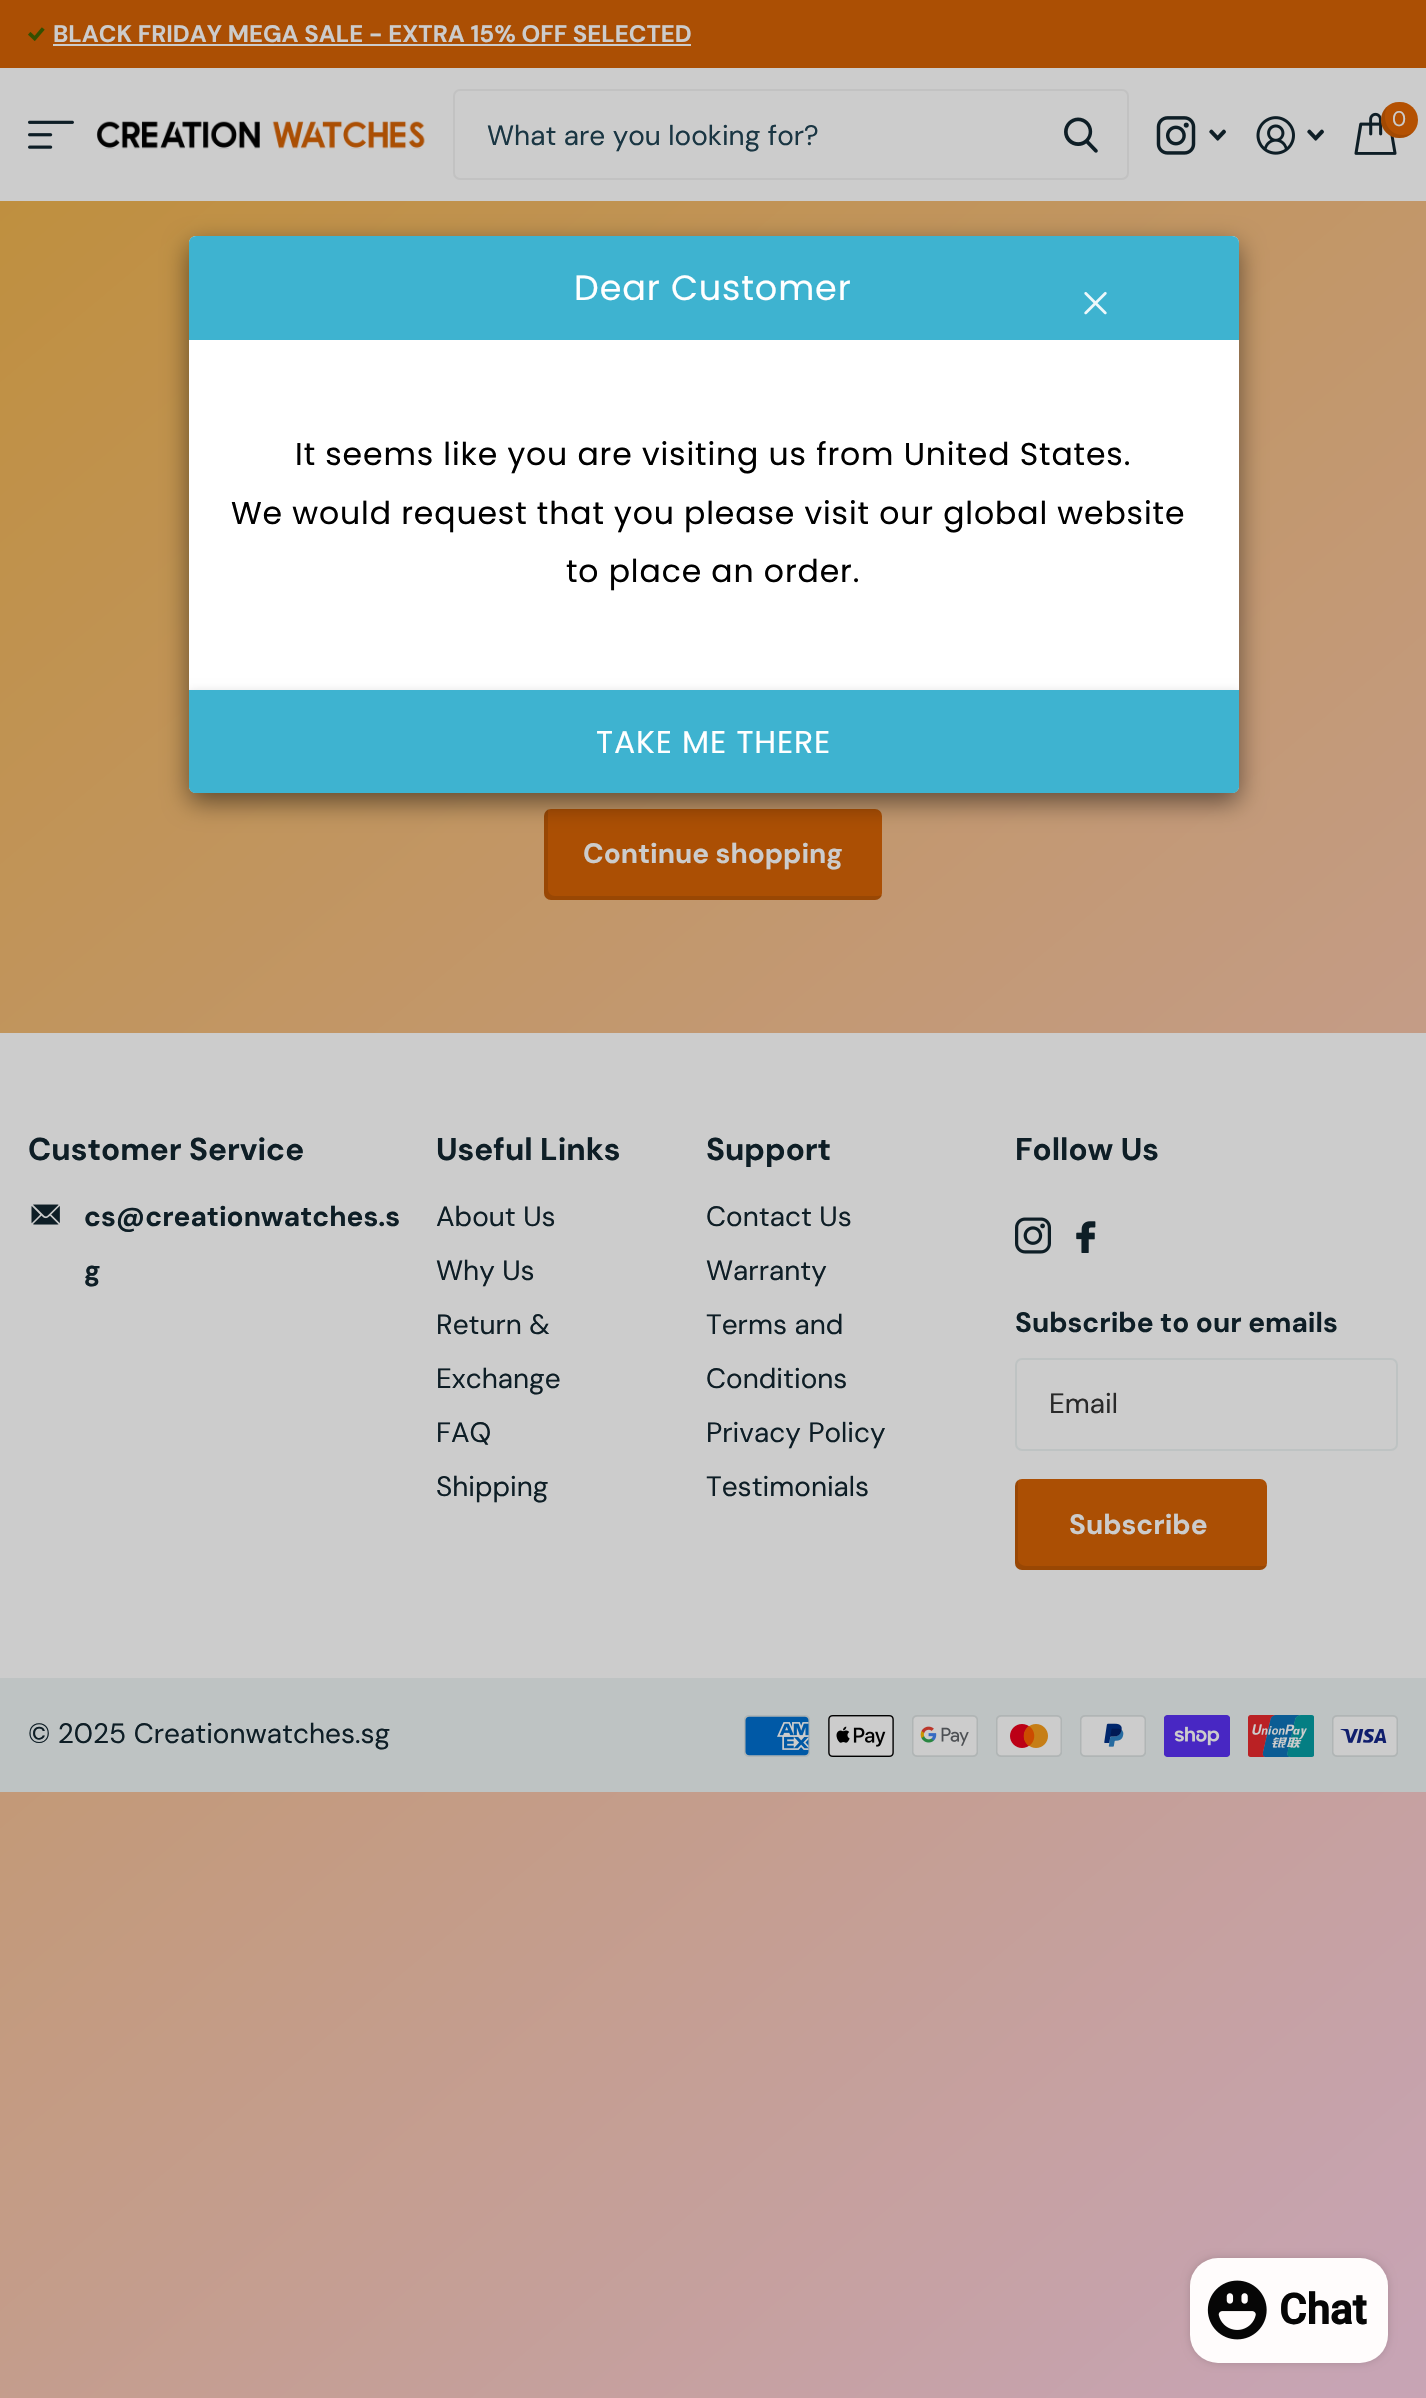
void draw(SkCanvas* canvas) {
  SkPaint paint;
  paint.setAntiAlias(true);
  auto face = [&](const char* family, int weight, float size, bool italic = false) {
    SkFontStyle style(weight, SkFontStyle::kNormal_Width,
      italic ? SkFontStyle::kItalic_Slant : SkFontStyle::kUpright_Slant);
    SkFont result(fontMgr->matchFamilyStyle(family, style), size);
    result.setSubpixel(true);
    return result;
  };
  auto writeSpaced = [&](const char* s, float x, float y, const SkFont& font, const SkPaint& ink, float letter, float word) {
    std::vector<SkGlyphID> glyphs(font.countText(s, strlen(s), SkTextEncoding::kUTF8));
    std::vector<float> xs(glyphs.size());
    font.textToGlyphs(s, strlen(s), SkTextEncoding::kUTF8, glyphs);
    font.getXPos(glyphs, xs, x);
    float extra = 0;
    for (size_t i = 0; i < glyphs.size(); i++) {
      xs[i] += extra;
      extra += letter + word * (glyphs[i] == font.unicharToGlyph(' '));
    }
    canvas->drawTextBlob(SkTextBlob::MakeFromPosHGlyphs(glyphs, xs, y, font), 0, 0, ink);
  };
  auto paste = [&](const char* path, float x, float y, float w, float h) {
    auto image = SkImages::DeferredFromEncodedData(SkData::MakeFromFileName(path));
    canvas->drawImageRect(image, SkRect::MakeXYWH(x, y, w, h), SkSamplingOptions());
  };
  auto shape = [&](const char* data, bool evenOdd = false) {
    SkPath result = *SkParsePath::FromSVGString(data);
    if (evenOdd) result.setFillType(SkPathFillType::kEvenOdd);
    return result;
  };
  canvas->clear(0xffcccccc);
  paint.setColor(0xffab4f04);
  canvas->drawRect(SkRect::MakeXYWH(0, 0, 1426, 68), paint);
  paste("img/1.png", 28, 27, 17, 14);
  paint.setColor(0xffcccccc);
  canvas->drawRect(SkRect::MakeXYWH(53, 44, 638, 2), paint);
  paste("img/2.png", 28, 120, 46, 29);
  paste("img/3.png", 96, 121, 329, 28);
  paint.setStroke(true);
  paint.setStrokeWidth(2);
  paint.setColor(0xffc2c2c2);
  canvas->drawRoundRect(SkRect::MakeXYWH(454, 90, 674, 89), 6, 6, paint);
  paste("img/4.png", 1064, 117, 34, 36);
  paste("img/5.png", 1156, 116, 40, 39);
  paste("img/6.png", 1209, 129, 17, 12);
  paste("img/7.png", 1256, 116, 39, 39);
  paste("img/6.png", 1307, 129, 17, 12);
  paste("img/8.png", 1354, 112, 43, 43);
  paint.setStroke(false);
  paint.setColor(0xffb45102);
  canvas->drawRoundRect(SkRect::MakeXYWH(1381, 102, 37, 36), 18, 18, paint);
  paint.setColor(0x1a000000);
  canvas->drawPath(shape("M1413.5 132C1410.5 134 1407 135 1403 135C1386 135 1381 116.5 1388 105.5C1379.5 112 1378.5 125 1386.5 132.5C1393.5 140 1406.5 139.5 1413.5 132Z"), paint);
  {
    const SkColor colors[] = {0xffc7a4b4, 0xffbf8f3d};
    const float stops[] = {0.04f, 1};
    const SkPoint ends[] = {{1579, 2332}, {-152, 269}};
    paint.setShader(SkGradientShader::MakeLinear(ends, colors, stops, 2, SkTileMode::kClamp));
    paint.setAlpha(255);
  }
  canvas->drawRect(SkRect::MakeXYWH(0, 201, 1426, 2197), paint);
  paint.setShader(nullptr);
  paint.setColor(0xffab4f04);
  canvas->drawRoundRect(SkRect::MakeXYWH(544, 809, 338, 91), 7, 7, paint);
  paint.setColor(0x1a000000);
  canvas->drawPath(shape("M548 809C546 811 544 813 544 816V893C544 897 547 900 551 900H875C878 900 881 898 882 895L878 896H555C551 896 548 893 548 889V812Z"), paint);
  paint.setColor(0xffcccccc);
  canvas->drawRect(SkRect::MakeXYWH(0, 1033, 1426, 645), paint);
  paste("img/9.png", 31, 1204, 29, 21);
  paste("img/10.png", 1015, 1217, 36, 37);
  paste("img/11.png", 1076, 1221, 20, 32);
  paint.setStroke(true);
  paint.setColor(0xffbec3c3);
  canvas->drawRoundRect(SkRect::MakeXYWH(1016, 1359, 381, 91), 6, 6, paint);
  paint.setStroke(false);
  paint.setColor(0xffab4f04);
  canvas->drawRoundRect(SkRect::MakeXYWH(1015, 1479, 252, 91), 7, 7, paint);
  paint.setColor(0x1a000000);
  canvas->drawPath(shape("M1018 1480C1016 1481 1015 1483 1015 1486V1563C1015 1567 1018 1570 1022 1570H1260C1263 1570 1266 1568 1267 1565L1264 1566H1026C1022 1566 1018 1563 1018 1559Z"), paint);
  paint.setColor(0xffbec3c3);
  canvas->drawRect(SkRect::MakeXYWH(0, 1678, 1426, 114), paint);
  paste("img/12.png", 744, 1715, 66, 42);
  paste("img/13.png", 828, 1715, 66, 42);
  paste("img/14.png", 912, 1715, 66, 42);
  paste("img/15.png", 996, 1715, 66, 42);
  paste("img/16.png", 1080, 1715, 66, 42);
  paste("img/17.png", 1164, 1715, 66, 42);
  paste("img/18.png", 1248, 1715, 66, 42);
  paste("img/19.png", 1332, 1715, 66, 42);
  paint.setColor(0x80000000);
  paint.setMaskFilter(SkMaskFilter::MakeBlur(kNormal_SkBlurStyle, 13));
  canvas->drawRoundRect(SkRect::MakeXYWH(189, 245, 1050, 557), 7, 7, paint);
  paint.setMaskFilter(nullptr);
  paint.setColor(0xffffffff);
  canvas->drawRoundRect(SkRect::MakeXYWH(189, 236, 1050, 557), 7, 7, paint);
  paint.setColor(0xff3eb3d0);
  canvas->drawPath(shape("M196 236H1232C1236 236 1239 239 1239 243V340H189V243C189 239 192 236 196 236Z"), paint);
  paste("img/20.png", 1084, 291, 23, 24);
  canvas->save();
  canvas->clipPath(shape("M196 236H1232C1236 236 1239 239 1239 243V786C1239 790 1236 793 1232 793H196C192 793 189 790 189 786V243C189 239 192 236 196 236Z"), true);
  paint.setColor(0x1f000000);
  paint.setMaskFilter(SkMaskFilter::MakeBlur(kNormal_SkBlurStyle, 4.5f));
  canvas->drawRect(SkRect::MakeXYWH(189, 691, 1050, 104), paint);
  paint.setMaskFilter(nullptr);
  canvas->restore();
  paint.setColor(0xff3eb3d0);
  canvas->drawPath(shape("M189 690H1239V786C1239 790 1236 793 1232 793H196C192 793 189 790 189 786Z"), paint);
  canvas->drawPath(shape("M191 692H1237V791L1239 787V690H189V787L191 791ZM1232 793C1234 793 1236 792 1237 791H191C192 792 194 793 196 793Z", true), paint);
  paint.setColor(0x26000000);
  paint.setMaskFilter(SkMaskFilter::MakeBlur(kNormal_SkBlurStyle, 4.5f));
  canvas->drawRoundRect(SkRect::MakeXYWH(1190, 2258, 198, 105), 28, 28, paint);
  paint.setMaskFilter(nullptr);
  paint.setColor(0xfffffcfc);
  canvas->drawRoundRect(SkRect::MakeXYWH(1190, 2258, 198, 105), 28, 28, paint);
  paste("img/21.png", 1207, 2280, 60, 60);
  auto f0 = face("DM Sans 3", 700, 24);
  paint.setColor(0xffcccccc);
  canvas->drawString("BLACK FRIDAY MEGA SALE - EXTRA 15% OFF SELECTED", 53, 42, f0, paint);
  auto f1 = face("DM Sans", 400, 28);
  paint.setColor(0xff1a3643);
  canvas->drawString("What are you looking for?", 487, 145, f1, paint);
  auto f2 = face("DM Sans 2", 400, 21);
  paint.setColor(0xffcccccc);
  canvas->drawString("0", 1392, 126, f2, paint);
  auto f3 = face("DM Sans 2", 700, 28);
  canvas->drawString("Continue shopping", 583, 863, f3, paint);
  auto f4 = face("DM Sans", 700, 31.5f);
  paint.setColor(0xff0e1e26);
  canvas->drawString("Customer Service", 28, 1160, f4, paint);
  canvas->drawString("cs@creationwatches.s", 84, 1226, f3, paint);
  canvas->drawString("g", 84, 1280, f3, paint);
  canvas->drawString("Useful Links", 436, 1160, f4, paint);
  {
    const struct { const char* s; float x, y; } items[] = {
      {"About Us", 436, 1226},
      {"Why Us", 436, 1280},
      {"Return &", 436, 1334},
      {"Exchange", 436, 1388},
      {"FAQ", 436, 1442},
      {"Shipping", 436, 1496},
    };
    for (auto [s, x, y] : items) {
      canvas->drawString(s, x, y, f1, paint);
    }
  }
  canvas->drawString("Support", 706, 1160, f4, paint);
  {
    const struct { const char* s; float x, y; } items[] = {
      {"Contact Us", 706, 1226},
      {"Warranty", 706, 1280},
      {"Terms and", 706, 1334},
      {"Conditions", 706, 1388},
      {"Privacy Policy", 706, 1442},
      {"Testimonials", 706, 1496},
    };
    for (auto [s, x, y] : items) {
      canvas->drawString(s, x, y, f1, paint);
    }
  }
  canvas->drawString("Follow Us", 1015, 1160, f4, paint);
  canvas->drawString("Subscribe to our emails", 1015, 1332, f3, paint);
  paint.setColor(0xff292929);
  canvas->drawString("Email", 1049, 1413, f1, paint);
  paint.setColor(0xffcccccc);
  canvas->drawString("Subscribe", 1069, 1534, f3, paint);
  paint.setColor(0xff0e1e26);
  canvas->drawString("© 2025 Creationwatches.sg", 28, 1743, f1, paint);
  auto f5 = face("Poppins", 400, 35);
  paint.setColor(0xffffffff);
  writeSpaced("Dear Customer", 574, 300, f5, paint, 0.88f, 0);
  auto f6 = face("Poppins", 400, 31.5f);
  paint.setColor(0xff000000);
  {
    const struct { const char* s; float x, y; } items[] = {
      {"It seems like you are visiting us from United States.", 295, 465},
      {"We would request that you please visit our global website", 231, 524},
      {"to place an order.", 566, 582},
    };
    for (auto [s, x, y] : items) {
      writeSpaced(s, x, y, f6, paint, 0.88f, 0);
    }
  }
  paint.setColor(0xffffffff);
  writeSpaced("TAKE ME THERE", 596, 753, f6, paint, 0.88f, 0);
  auto f7 = face("Roboto", 700, 42);
  paint.setColor(0xff060606);
  canvas->drawString("Chat", 1279, 2324, f7, paint);
}
